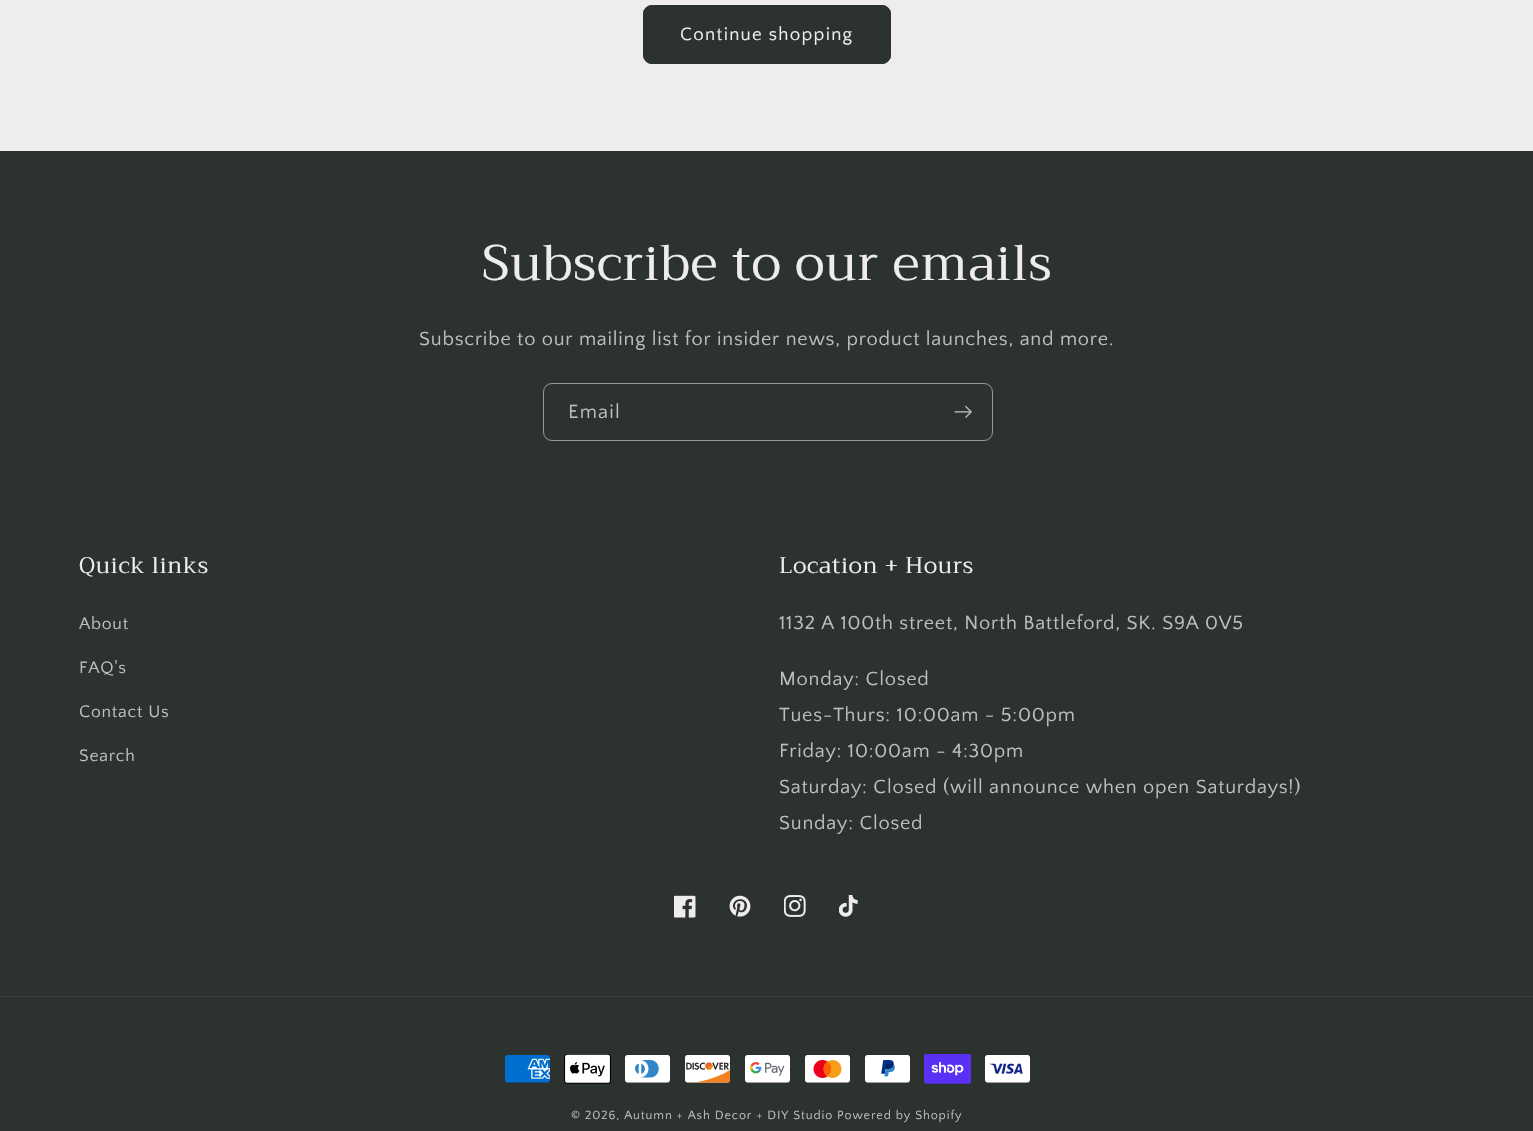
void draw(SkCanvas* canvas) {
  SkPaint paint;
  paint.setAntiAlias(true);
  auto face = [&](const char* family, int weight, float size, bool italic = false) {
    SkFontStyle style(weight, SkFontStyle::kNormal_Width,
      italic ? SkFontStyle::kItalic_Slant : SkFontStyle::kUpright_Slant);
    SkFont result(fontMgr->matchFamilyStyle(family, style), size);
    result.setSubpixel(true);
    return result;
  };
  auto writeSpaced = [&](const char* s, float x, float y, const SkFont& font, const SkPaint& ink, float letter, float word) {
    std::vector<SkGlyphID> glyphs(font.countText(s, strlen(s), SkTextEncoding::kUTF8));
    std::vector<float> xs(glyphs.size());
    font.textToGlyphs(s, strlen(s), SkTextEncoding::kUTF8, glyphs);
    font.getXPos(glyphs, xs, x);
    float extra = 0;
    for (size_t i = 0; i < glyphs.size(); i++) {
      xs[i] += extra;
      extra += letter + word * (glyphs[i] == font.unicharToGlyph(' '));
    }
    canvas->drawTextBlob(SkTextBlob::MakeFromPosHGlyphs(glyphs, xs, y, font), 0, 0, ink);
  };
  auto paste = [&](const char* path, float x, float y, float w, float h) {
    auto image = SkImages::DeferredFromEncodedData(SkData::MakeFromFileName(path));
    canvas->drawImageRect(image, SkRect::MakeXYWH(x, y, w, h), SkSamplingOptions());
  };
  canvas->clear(0xffefecec);
  paint.setColor(0xff2c332f);
  canvas->drawRoundRect(SkRect::MakeXYWH(643, 5, 248, 59), 9, 9, paint);
  paint.setStroke(true);
  paint.setStrokeWidth(1);
  canvas->drawRoundRect(SkRect::MakeXYWH(643.5f, 5.5f, 247, 58), 8.5f, 8.5f, paint);
  paint.setStroke(false);
  canvas->drawRect(SkRect::MakeXYWH(0, 151, 1533, 980), paint);
  paint.setStroke(true);
  paint.setColor(0xff979997);
  canvas->drawRoundRect(SkRect::MakeXYWH(543.5f, 383.5f, 449, 57), 8.5f, 8.5f, paint);
  paste("img/1.png", 954, 405, 18, 13);
  paste("img/2.png", 674, 895, 22, 23);
  paste("img/3.png", 729, 895, 22, 22);
  paste("img/4.png", 784, 895, 22, 22);
  paste("img/5.png", 839, 895, 19, 22);
  paint.setStroke(false);
  paint.setColor(0xff3c423e);
  canvas->drawRect(SkRect::MakeXYWH(0, 996, 1533, 1), paint);
  paste("img/6.png", 505, 1055, 45, 28);
  paste("img/7.png", 564, 1054, 47, 30);
  paste("img/8.png", 625, 1055, 45, 28);
  paste("img/9.png", 685, 1055, 45, 28);
  paste("img/10.png", 745, 1055, 45, 28);
  paste("img/11.png", 805, 1055, 45, 28);
  paste("img/12.png", 865, 1055, 45, 28);
  paste("img/13.png", 924, 1054, 47, 30);
  paste("img/14.png", 985, 1055, 45, 28);
  auto f0 = face("Quattrocento Sans", 400, 18.75f);
  paint.setColor(0xffefecec);
  writeSpaced("Continue shopping", 680, 40, f0, paint, 1.25f, 0);
  auto f1 = face("Trirong", 400, 50);
  writeSpaced("Subscribe to our emails", 482, 280, f1, paint, 0.75f, 0);
  auto f2 = face("Quattrocento Sans", 400, 20);
  paint.setColor(0xffbebebd);
  writeSpaced("Subscribe to our mailing list for insider news, product launches, and more.", 419, 345, f2, paint, 0.75f, 0);
  writeSpaced("Email", 568, 418, f2, paint, 1.25f, 0);
  auto f3 = face("Trirong", 400, 22.5f);
  paint.setColor(0xffefecec);
  writeSpaced("Quick links", 79, 573, f3, paint, 0.75f, 0);
  auto f4 = face("Quattrocento Sans", 400, 17.5f);
  paint.setColor(0xffbebebd);
  {
    const struct { const char* s; float x, y; } items[] = {
      {"About", 79, 629},
      {"FAQ's", 79, 673},
      {"Contact Us", 79, 717},
      {"Search", 79, 761},
    };
    for (auto [s, x, y] : items) {
      writeSpaced(s, x, y, f4, paint, 0.75f, 0);
    }
  }
  paint.setColor(0xffefecec);
  writeSpaced("Location + Hours", 779, 573, f3, paint, 0.75f, 0);
  paint.setColor(0xffbebebd);
  {
    const struct { const char* s; float x, y; } items[] = {
      {"1132 A 100th street, North Battleford, SK. S9A 0V5", 779, 629},
      {"Monday: Closed", 779, 685},
      {"Tues-Thurs: 10:00am - 5:00pm", 779, 721},
      {"Friday: 10:00am - 4:30pm", 779, 757},
      {"Saturday: Closed (will announce when open Saturdays!)", 779, 793},
      {"Sunday: Closed", 779, 829},
    };
    for (auto [s, x, y] : items) {
      writeSpaced(s, x, y, f2, paint, 0.75f, 0);
    }
  }
  auto f5 = face("Quattrocento Sans", 400, 12.5f);
  writeSpaced("© 2026, Autumn + Ash Decor + DIY Studio", 571, 1119, f5, paint, 0.9f, 0);
  writeSpaced("Powered by Shopify", 837, 1119, f5, paint, 0.9f, 0);
}
